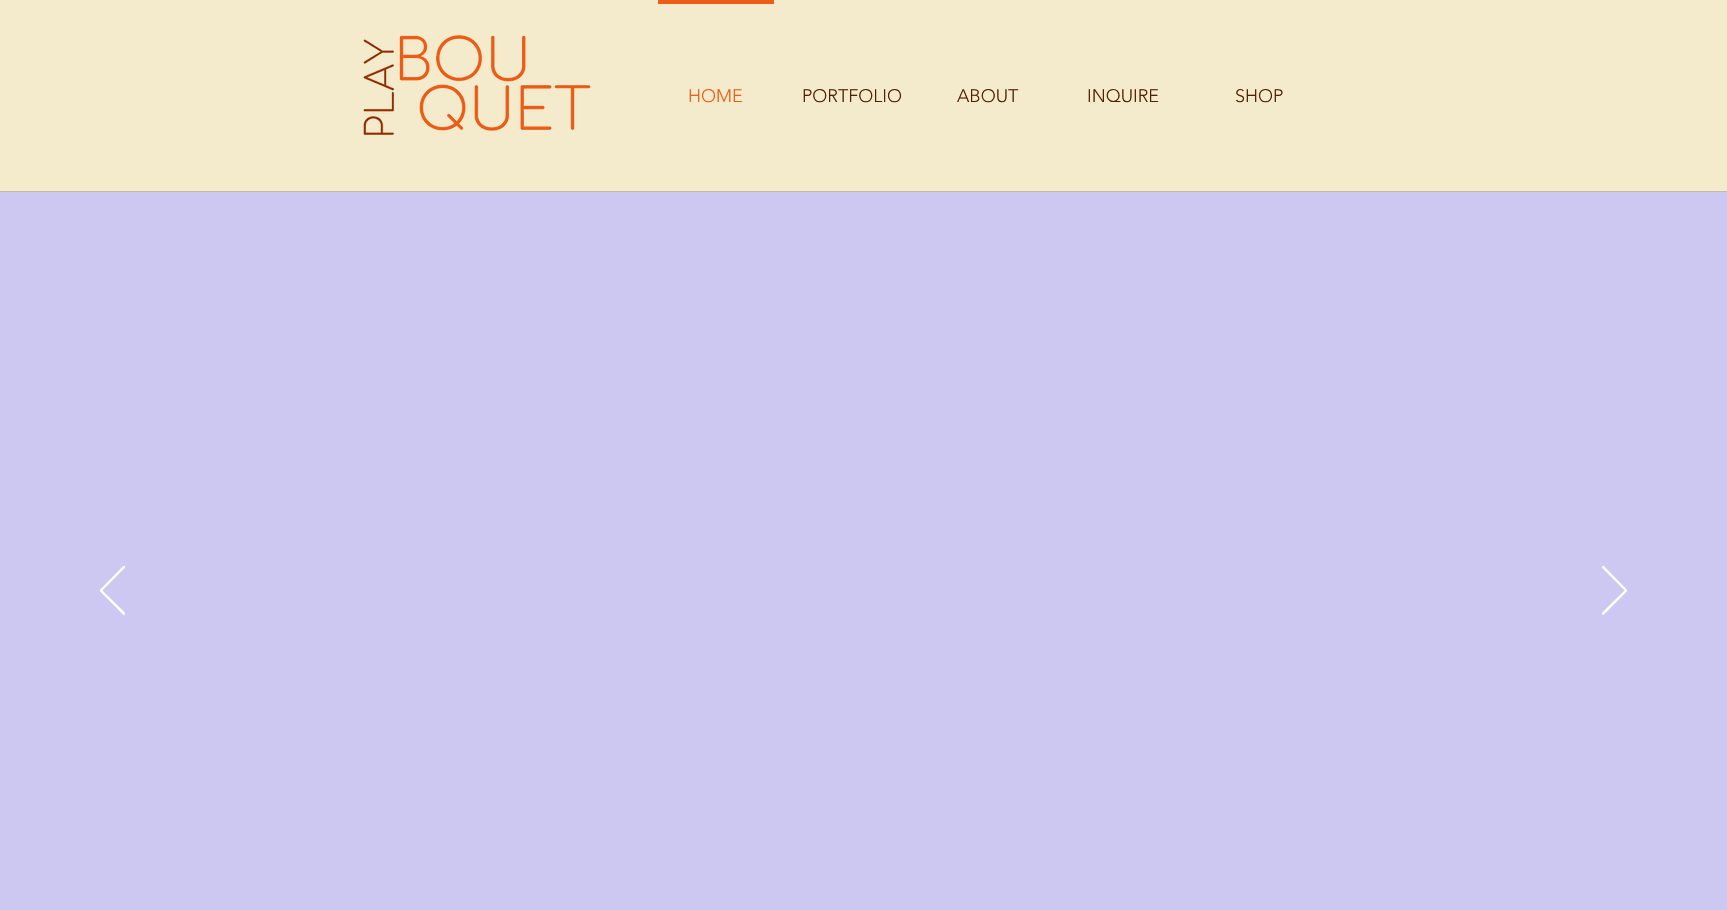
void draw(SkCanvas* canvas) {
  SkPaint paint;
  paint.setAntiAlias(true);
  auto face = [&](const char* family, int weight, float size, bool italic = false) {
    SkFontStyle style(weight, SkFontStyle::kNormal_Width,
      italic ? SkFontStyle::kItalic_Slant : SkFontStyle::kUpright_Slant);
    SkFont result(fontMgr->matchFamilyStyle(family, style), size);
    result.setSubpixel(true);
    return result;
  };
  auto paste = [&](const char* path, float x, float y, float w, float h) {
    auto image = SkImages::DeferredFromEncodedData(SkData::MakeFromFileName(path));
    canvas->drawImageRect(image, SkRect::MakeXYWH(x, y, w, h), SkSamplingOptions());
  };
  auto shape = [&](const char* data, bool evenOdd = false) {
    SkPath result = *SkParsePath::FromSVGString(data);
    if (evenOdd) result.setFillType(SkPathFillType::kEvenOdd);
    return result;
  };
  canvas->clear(0xfff3ebcb);
  paste("img/1.png", 363, 35, 228, 100);
  {
    const struct { float x, y, w, h; SkColor color; } items[] = {
      {658, 0, 116, 4, 0xffed5d16},
      {0, 191, 1727, 1, 0xffc3bca3},
      {0, 192, 1727, 718, 0xffccc8f1},
    };
    for (auto [x, y, w, h, color] : items) {
      paint.setColor(color);
      canvas->drawRect(SkRect::MakeXYWH(x, y, w, h), paint);
    }
  }
  canvas->save();
  canvas->clipRect(SkRect::MakeXYWH(100, 566, 25, 49));
  paint.setStroke(true);
  paint.setStrokeWidth(1.2f);
  paint.setColor(0xffffffff);
  canvas->drawPath(shape("M124 614.5L100 590.5L124 566L125 567L101.5 590.5L125 613.5Z"), paint);
  canvas->restore();
  canvas->save();
  canvas->clipRect(SkRect::MakeXYWH(1602, 566, 25, 49));
  canvas->drawPath(shape("M1603 614.5L1627 590.5L1603 566L1602 567L1625.5 590.5L1602 613.5Z"), paint);
  canvas->restore();
  auto f0 = face("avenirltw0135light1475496", 300, 18);
  paint.setStroke(false);
  paint.setColor(0xffed5d16);
  canvas->drawString("HOME", 688, 102, f0, paint);
  paint.setColor(0xff4f1f07);
  {
    const struct { const char* s; float x, y; } items[] = {
      {"PORTFOLIO", 802, 102},
      {"ABOUT", 957, 102},
      {"INQUIRE", 1087, 102},
      {"SHOP", 1235, 102},
    };
    for (auto [s, x, y] : items) {
      canvas->drawString(s, x, y, f0, paint);
    }
  }
}
